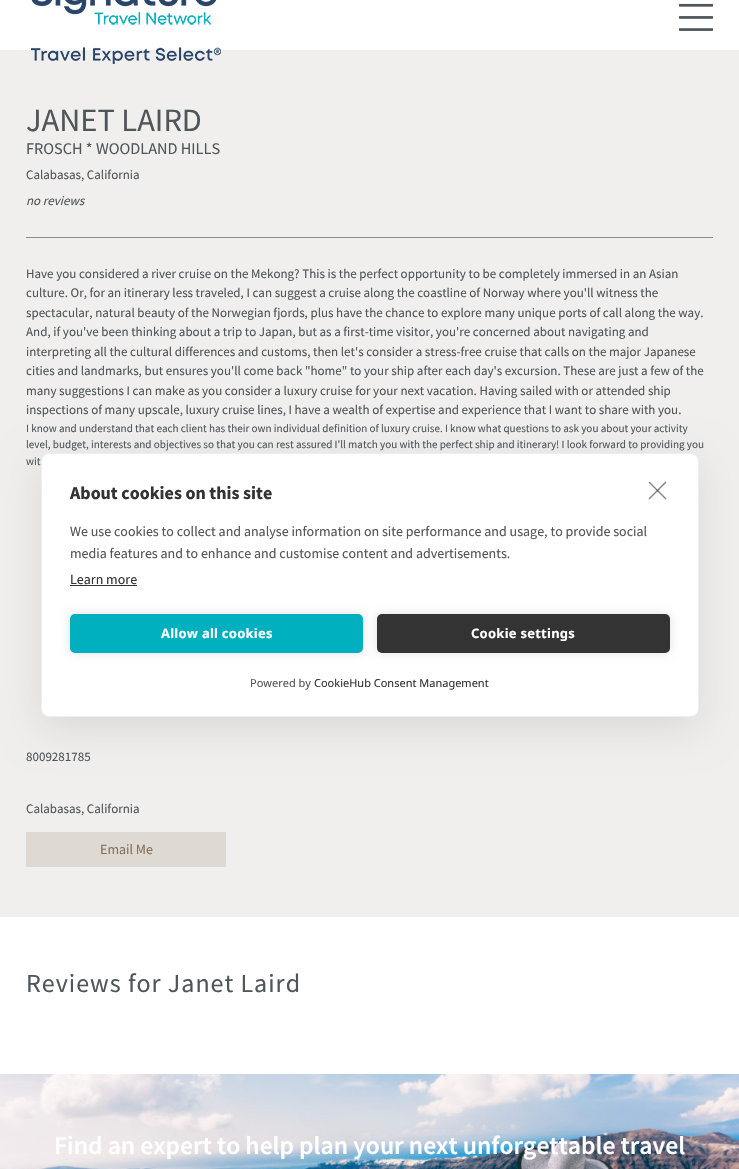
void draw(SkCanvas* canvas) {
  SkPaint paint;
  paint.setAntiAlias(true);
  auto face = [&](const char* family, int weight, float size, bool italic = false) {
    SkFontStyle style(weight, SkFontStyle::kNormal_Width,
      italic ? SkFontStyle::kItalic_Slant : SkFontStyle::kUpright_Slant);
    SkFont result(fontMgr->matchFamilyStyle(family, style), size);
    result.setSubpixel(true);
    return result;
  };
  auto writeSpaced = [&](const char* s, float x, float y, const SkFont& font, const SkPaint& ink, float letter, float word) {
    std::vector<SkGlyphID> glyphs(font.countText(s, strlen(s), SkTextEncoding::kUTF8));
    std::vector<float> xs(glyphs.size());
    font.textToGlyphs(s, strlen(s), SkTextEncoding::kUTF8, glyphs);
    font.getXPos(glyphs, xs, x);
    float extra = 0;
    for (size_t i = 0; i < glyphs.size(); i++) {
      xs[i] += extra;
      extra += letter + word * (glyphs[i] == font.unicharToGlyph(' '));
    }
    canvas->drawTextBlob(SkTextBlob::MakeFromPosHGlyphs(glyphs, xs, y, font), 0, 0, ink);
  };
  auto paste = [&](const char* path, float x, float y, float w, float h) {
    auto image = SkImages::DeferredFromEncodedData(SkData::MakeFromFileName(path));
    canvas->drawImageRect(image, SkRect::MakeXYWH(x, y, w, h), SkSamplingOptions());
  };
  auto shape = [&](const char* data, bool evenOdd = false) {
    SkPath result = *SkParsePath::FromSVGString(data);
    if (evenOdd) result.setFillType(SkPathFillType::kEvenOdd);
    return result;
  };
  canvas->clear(0xffffffff);
  paint.setColor(0xfff1efed);
  canvas->drawRect(SkRect::MakeXYWH(0, 50, 739, 867), paint);
  paste("img/1.png", 31, 0, 190, 64);
  paste("img/2.png", 679, 3, 34, 28);
  paint.setColor(0xff8c8c8c);
  canvas->drawRect(SkRect::MakeXYWH(26, 237, 687, 1), paint);
  paint.setColor(0xffdfd9d3);
  canvas->drawRect(SkRect::MakeXYWH(26, 832, 200, 35), paint);
  paste("img/3.png", 0, 1074, 739, 95);
  paint.setColor(0x1a000000);
  paint.setMaskFilter(SkMaskFilter::MakeBlur(kNormal_SkBlurStyle, 20));
  canvas->drawRoundRect(SkRect::MakeXYWH(41, 463, 658, 264), 8, 8, paint);
  paint.setMaskFilter(nullptr);
  paint.setColor(0xffffffff);
  canvas->drawRoundRect(SkRect::MakeXYWH(41.5f, 453.5f, 657, 263), 7.5f, 7.5f, paint);
  paint.setStroke(true);
  paint.setStrokeWidth(1);
  paint.setColor(0xffeeeeee);
  canvas->drawRoundRect(SkRect::MakeXYWH(41.5f, 453.5f, 657, 263), 7.5f, 7.5f, paint);
  paint.setStroke(false);
  paint.setColor(0xff333333);
  canvas->drawRect(SkRect::MakeXYWH(70, 585, 67, 1), paint);
  paint.setColor(0xff858585);
  canvas->drawPath(shape("M648.5 498.5L665.5 481.5L666.5 482.5L649.5 499.5Z"), paint);
  paint.setColor(0x99333333);
  canvas->drawPath(shape("M649.5 481.5L666.5 498.5L665.5 499.5L648.5 482.5Z"), paint);
  paint.setColor(0x1f000000);
  paint.setMaskFilter(SkMaskFilter::MakeBlur(kNormal_SkBlurStyle, 5));
  canvas->drawRoundRect(SkRect::MakeXYWH(70, 614, 293, 39), 5, 5, paint);
  paint.setMaskFilter(nullptr);
  paint.setColor(0xff00b0be);
  canvas->drawRoundRect(SkRect::MakeXYWH(70, 614, 293, 39), 5, 5, paint);
  paint.setColor(0x1f000000);
  paint.setMaskFilter(SkMaskFilter::MakeBlur(kNormal_SkBlurStyle, 5));
  canvas->drawRoundRect(SkRect::MakeXYWH(377, 614, 293, 39), 5, 5, paint);
  paint.setMaskFilter(nullptr);
  paint.setColor(0xff333333);
  canvas->drawRoundRect(SkRect::MakeXYWH(377, 614, 293, 39), 5, 5, paint);
  auto f0 = face("Source Sans Pro", 400, 32.5f);
  paint.setColor(0xff4f565a);
  canvas->drawString("JANET LAIRD", 26, 131, f0, paint);
  auto f1 = face("Source Sans Pro", 400, 16.25f);
  canvas->drawString("FROSCH * WOODLAND HILLS", 26, 154, f1, paint);
  auto f2 = face("Source Sans Pro", 400, 13);
  canvas->drawString("Calabasas, California", 26, 179, f2, paint);
  auto f3 = face("Source Sans Pro", 400, 13, true);
  canvas->drawString("no reviews", 26, 205, f3, paint);
  {
    const struct { const char* s; float x, y; } items[] = {
      {"Have you considered a river cruise on the Mekong? This is the perfect opportunity to be completely immersed in an Asian", 26, 278},
      {"culture. Or, for an itinerary less traveled, I can suggest a cruise along the coastline of Norway where you'll witness the", 26, 297},
      {"spectacular, natural beauty of the Norwegian fjords, plus have the chance to explore many unique ports of call along the way.", 26, 317},
      {"And, if you've been thinking about a trip to Japan, but as a first-time visitor, you're concerned about navigating and", 26, 336},
      {"interpreting all the cultural differences and customs, then let's consider a stress-free cruise that calls on the major Japanese", 26, 356},
      {"cities and landmarks, but ensures you'll come back \"home\" to your ship after each day's excursion. These are just a few of the", 26, 375},
      {"many suggestions I can make as you consider a luxury cruise for your next vacation. Having sailed with or attended ship", 26, 395},
      {"inspections of many upscale, luxury cruise lines, I have a wealth of expertise and experience that I want to share with you.", 26, 414},
    };
    for (auto [s, x, y] : items) {
      canvas->drawString(s, x, y, f2, paint);
    }
  }
  auto f4 = face("Source Sans Pro", 400, 11.1f);
  {
    const struct { const char* s; float x, y; } items[] = {
      {"I know and understand that each client has their own individual definition of luxury cruise. I know what questions to ask you about your activity", 26, 432},
      {"level, budget, interests and objectives so that you can rest assured I'll match you with the perfect ship and itinerary! I look forward to providing you", 26, 448},
      {"wit", 26, 465},
    };
    for (auto [s, x, y] : items) {
      canvas->drawString(s, x, y, f4, paint);
    }
  }
  canvas->drawString("8009281785", 26, 761, f2, paint);
  canvas->drawString("Calabasas, California", 26, 813, f2, paint);
  auto f5 = face("Source Sans Pro", 400, 14);
  paint.setColor(0xff857058);
  canvas->drawString("Email Me", 100, 854, f5, paint);
  auto f6 = face("Source Sans Pro", 400, 26);
  paint.setColor(0xff4f565a);
  writeSpaced("Reviews for Janet Laird", 26, 992, f6, paint, 1, 0);
  auto f7 = face("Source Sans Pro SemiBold", 600, 25.6f);
  paint.setColor(0xffffffff);
  canvas->drawString("Find an expert to help plan your next unforgettable travel", 54, 1154, f7, paint);
  auto f8 = face("Source Sans Pro", 700, 18);
  paint.setColor(0xff333333);
  canvas->drawString("About cookies on this site", 70, 499, f8, paint);
  paint.setColor(0xff555555);
  canvas->drawString("We use cookies to collect and analyse information on site performance and usage, to provide social", 70, 536, f5, paint);
  canvas->drawString("media features and to enhance and customise content and advertisements.", 70, 558, f5, paint);
  paint.setColor(0xff333333);
  canvas->drawString("Learn more", 70, 584, f5, paint);
  auto f9 = face("Noto Sans", 700, 13);
  paint.setColor(0xffffffff);
  writeSpaced("Allow all cookies", 161, 638, f9, paint, 0.25f, 0);
  writeSpaced("Cookie settings", 471, 638, f9, paint, 0.25f, 0);
  auto f10 = face("Noto Sans", 400, 11);
  paint.setColor(0xff555555);
  canvas->drawString("Powered by", 250, 687, f10, paint);
  paint.setColor(0xff333333);
  canvas->drawString("CookieHub Consent Management", 314, 687, f10, paint);
}
